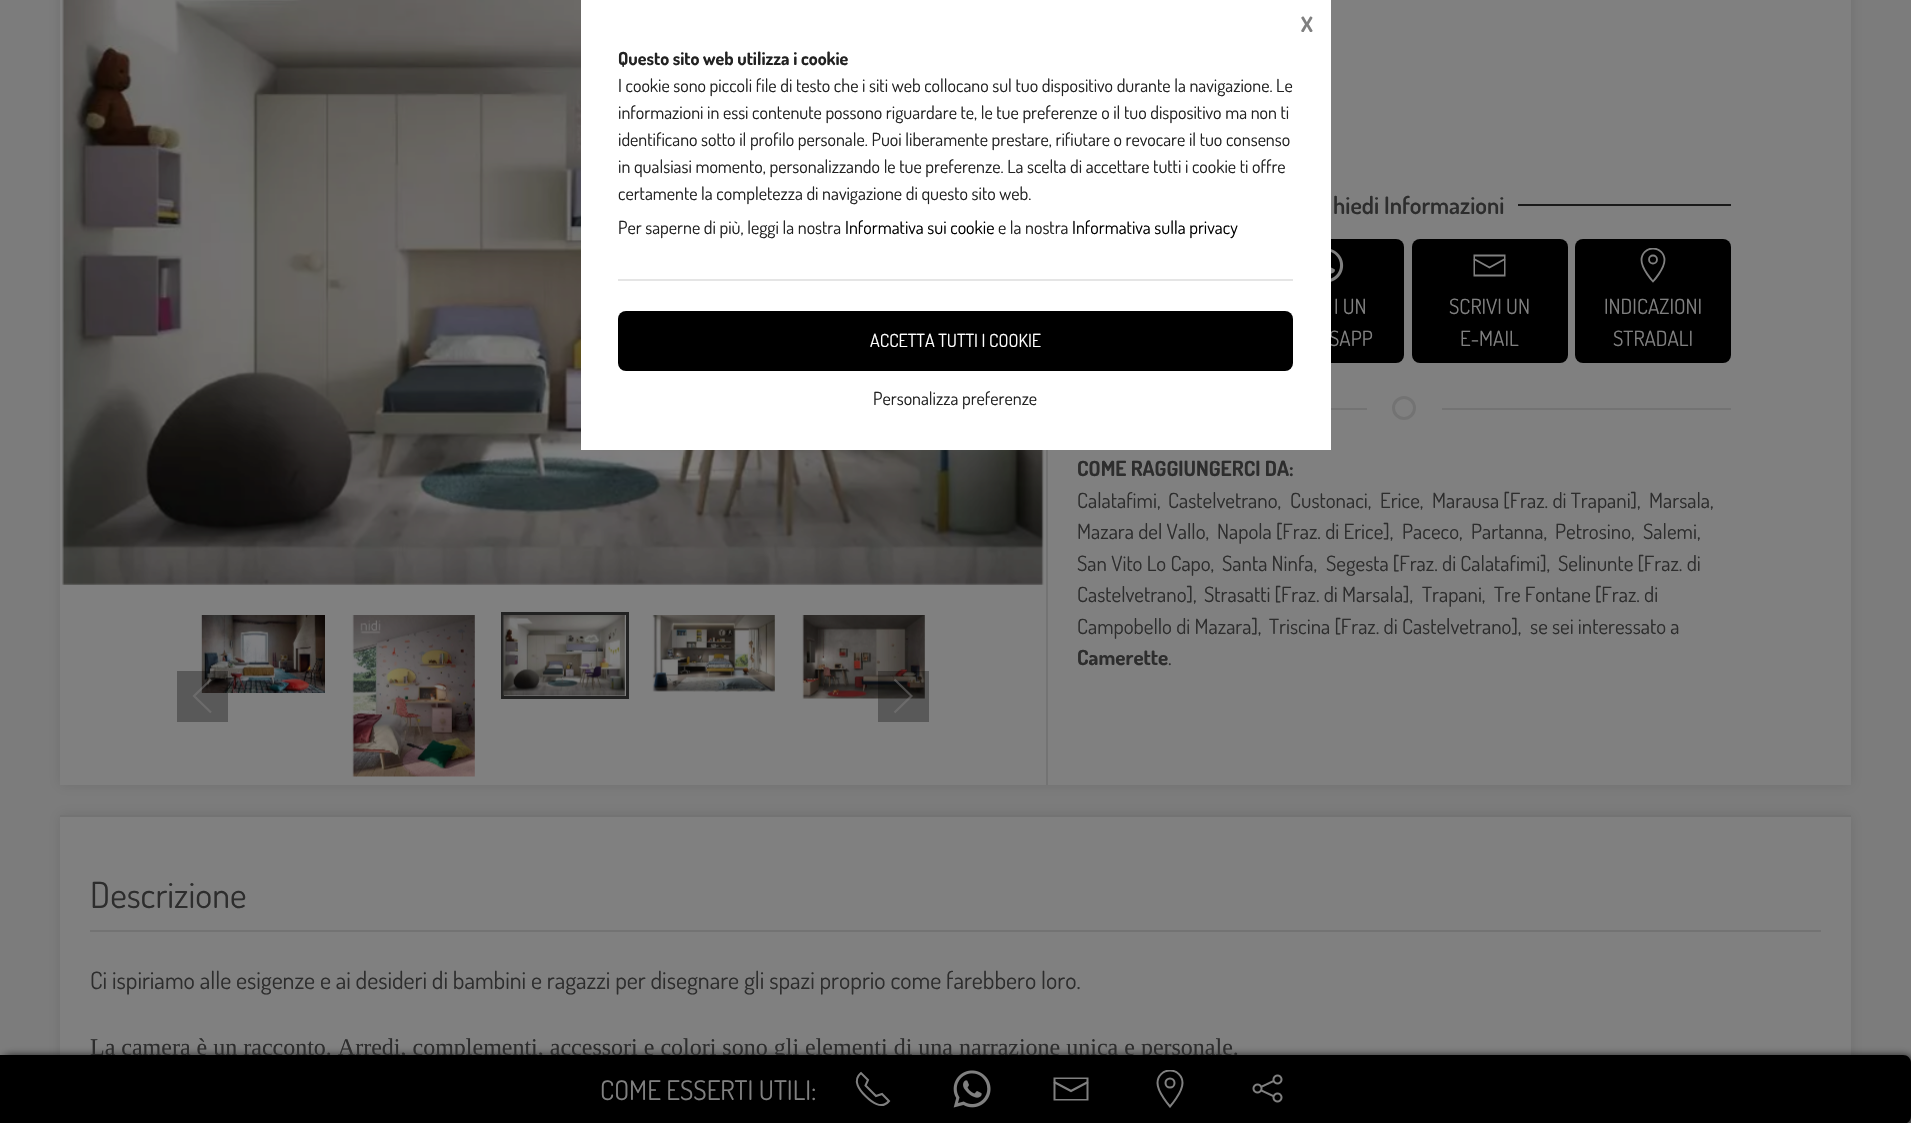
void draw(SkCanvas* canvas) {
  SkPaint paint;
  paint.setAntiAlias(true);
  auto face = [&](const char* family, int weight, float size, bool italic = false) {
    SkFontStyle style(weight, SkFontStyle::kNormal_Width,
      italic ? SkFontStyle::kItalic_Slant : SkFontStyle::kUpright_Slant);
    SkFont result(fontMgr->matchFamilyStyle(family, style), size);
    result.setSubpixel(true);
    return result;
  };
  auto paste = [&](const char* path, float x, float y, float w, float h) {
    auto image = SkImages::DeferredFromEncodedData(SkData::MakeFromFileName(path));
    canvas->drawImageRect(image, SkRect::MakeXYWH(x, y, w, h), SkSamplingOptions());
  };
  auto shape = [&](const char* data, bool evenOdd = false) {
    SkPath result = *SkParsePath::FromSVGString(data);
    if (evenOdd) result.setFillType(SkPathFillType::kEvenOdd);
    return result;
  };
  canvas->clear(0xff7c7c7c);
  paint.setColor(0x1a000000);
  paint.setMaskFilter(SkMaskFilter::MakeBlur(kNormal_SkBlurStyle, 6));
  canvas->drawRect(SkRect::MakeXYWH(60, -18, 1791, 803), paint);
  paint.setMaskFilter(nullptr);
  paint.setColor(0xff808080);
  canvas->drawRect(SkRect::MakeXYWH(60, 0, 1791, 785), paint);
  paste("img/1.png", 62, 0, 982, 585);
  paste("img/2.png", 201, 615, 124, 78);
  paste("img/3.png", 352, 615, 123, 162);
  paint.setStroke(true);
  paint.setStrokeWidth(3);
  paint.setColor(0xff222222);
  canvas->drawRect(SkRect::MakeXYWH(502.5f, 613.5f, 125, 84), paint);
  paste("img/4.png", 502, 615, 123, 81);
  paste("img/5.png", 652, 615, 123, 77);
  paste("img/6.png", 802, 615, 123, 84);
  paint.setStroke(false);
  paint.setColor(0x4d000000);
  canvas->drawRect(SkRect::MakeXYWH(177, 671, 51, 51), paint);
  paint.setStroke(true);
  paint.setStrokeWidth(2.1f);
  paint.setColor(0x80807e7e);
  canvas->drawPath(shape("M211 679.5L194 696L211 712.5"), paint);
  paint.setStroke(false);
  paint.setColor(0x4d000000);
  canvas->drawRect(SkRect::MakeXYWH(878, 671, 51, 51), paint);
  paint.setStroke(true);
  paint.setColor(0x80807e7e);
  canvas->drawPath(shape("M894.5 712.5L911.5 696L894.5 679.5"), paint);
  paint.setStroke(false);
  paint.setColor(0xff737373);
  canvas->drawRect(SkRect::MakeXYWH(1046, 450, 2, 335), paint);
  paint.setColor(0xff1a1a1a);
  canvas->drawRect(SkRect::MakeXYWH(1518, 204, 213, 2), paint);
  paint.setColor(0xff000000);
  canvas->drawRoundRect(SkRect::MakeXYWH(1248, 239, 156, 124), 8, 8, paint);
  paste("img/7.png", 1331, 249, 13, 33);
  canvas->drawRoundRect(SkRect::MakeXYWH(1412, 239, 156, 124), 8, 8, paint);
  paint.setStroke(true);
  paint.setStrokeWidth(1.8f);
  paint.setColor(0xff808080);
  canvas->drawPath(shape("M1474 259L1489.5 267.5L1505 259"), paint);
  paint.setStroke(false);
  canvas->drawPath(shape("M1473.5 254.5V276.5H1505.5V254.5ZM1504 274.5H1475V256.5H1504Z"), paint);
  paint.setColor(0xff000000);
  canvas->drawRoundRect(SkRect::MakeXYWH(1575, 239, 156, 124), 8, 8, paint);
  canvas->save();
  canvas->clipRect(SkRect::MakeXYWH(1635, 248, 36, 36));
  paint.setStroke(true);
  paint.setColor(0xff808080);
  canvas->drawPath(shape("M1653 248.5C1646.5 248.5 1641.5 253.5 1641.5 260C1641.5 269 1653 281.5 1653 281.5C1653 281.5 1664.5 269 1664.5 260C1664.5 253.5 1659.5 248.5 1653 248.5Z"), paint);
  canvas->restore();
  canvas->drawCircle(1653, 259.5f, 4, paint);
  paint.setStrokeWidth(3);
  paint.setColor(0xff737373);
  canvas->drawCircle(1404, 408, 10.5f, paint);
  paint.setStroke(false);
  canvas->drawRect(SkRect::MakeXYWH(1331, 408, 36, 2), paint);
  canvas->drawRect(SkRect::MakeXYWH(1442, 408, 289, 2), paint);
  paint.setColor(0x1a000000);
  paint.setMaskFilter(SkMaskFilter::MakeBlur(kNormal_SkBlurStyle, 6));
  canvas->drawRect(SkRect::MakeXYWH(60, 815, 1791, 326), paint);
  paint.setMaskFilter(nullptr);
  {
    const struct { float x, y, w, h; SkColor color; } items[] = {
      {60, 817, 1791, 238, 0xff808080},
      {60, 815, 1791, 2, 0xff737373},
      {90, 930, 1731, 2, 0xff737373},
    };
    for (auto [x, y, w, h, color] : items) {
      paint.setColor(color);
      canvas->drawRect(SkRect::MakeXYWH(x, y, w, h), paint);
    }
  }
  paint.setColor(0xff111111);
  paint.setMaskFilter(SkMaskFilter::MakeBlur(kNormal_SkBlurStyle, 4));
  canvas->drawRoundRect(SkRect::MakeXYWH(2, 1056, 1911, 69), 8, 8, paint);
  paint.setMaskFilter(nullptr);
  auto f0 = face("Dosis", 600, 24);
  paint.setColor(0xff2d2d2d);
  canvas->drawString("hiedi Informazioni", 1333, 214, f0, paint);
  auto f1 = face("Dosis", 400, 21);
  paint.setColor(0xff808080);
  canvas->drawString("I UN", 1334, 314, f1, paint);
  canvas->drawString("SAPP", 1329, 346, f1, paint);
  paint.setColor(0xffffffff);
  canvas->drawRect(SkRect::MakeXYWH(581, 0, 750, 450), paint);
  auto f2 = face("Dosis", 700, 21);
  paint.setColor(0xff808080);
  canvas->drawString("X", 1301, 32, f2, paint);
  auto f3 = face("Dosis", 400, 18);
  paint.setColor(0xff000000);
  canvas->drawString("Informativa sulla privacy", 1072, 234, f3, paint);
  paint.setColor(0xff222222);
  canvas->drawString("e la nostra", 998, 234, f3, paint);
  paint.setColor(0xff000000);
  canvas->drawString("Informativa sui cookie", 845, 234, f3, paint);
  paint.setColor(0xff222222);
  {
    const struct { const char* s; float x, y; } items[] = {
      {"Per saperne di più, leggi la nostra", 618, 234},
      {"certamente la completezza di navigazione di questo sito web.", 618, 200},
      {"in qualsiasi momento, personalizzando le tue preferenze. La scelta di accettare tutti i cookie ti offre", 618, 173},
      {"identificano sotto il profilo personale. Puoi liberamente prestare, rifiutare o revocare il tuo consenso", 618, 146},
      {"informazioni in essi contenute possono riguardare te, le tue preferenze o il tuo dispositivo ma non ti", 618, 119},
      {"I cookie sono piccoli file di testo che i siti web collocano sul tuo dispositivo durante la navigazione. Le", 618, 92},
    };
    for (auto [s, x, y] : items) {
      canvas->drawString(s, x, y, f3, paint);
    }
  }
  auto f4 = face("Dosis", 700, 18);
  canvas->drawString("Questo sito web utilizza i cookie", 618, 65, f4, paint);
  canvas->drawString("Personalizza preferenze", 873, 405, f3, paint);
  paint.setColor(0xff000000);
  canvas->drawRoundRect(SkRect::MakeXYWH(618, 311, 675, 60), 8, 8, paint);
  paint.setColor(0xffffffff);
  canvas->drawString("ACCETTA TUTTI I COOKIE", 870, 347, f3, paint);
  paint.setColor(0xffe5e5e5);
  canvas->drawRect(SkRect::MakeXYWH(618, 279, 675, 2), paint);
  paint.setColor(0xff808080);
  {
    const struct { const char* s; float x, y; } items[] = {
      {"SCRIVI UN", 1449, 314},
      {"E-MAIL", 1460, 346},
      {"INDICAZIONI", 1604, 314},
      {"STRADALI", 1613, 346},
    };
    for (auto [s, x, y] : items) {
      canvas->drawString(s, x, y, f1, paint);
    }
  }
  paint.setColor(0xff2d2d2d);
  canvas->drawString("COME RAGGIUNGERCI DA:", 1077, 476, f2, paint);
  {
    const struct { const char* s; float x, y; } items[] = {
      {"Calatafimi,", 1077, 508},
      {"Castelvetrano,", 1168, 508},
      {"Custonaci,", 1290, 508},
      {"Erice,", 1380, 508},
      {"Marausa [Fraz. di Trapani],", 1432, 508},
      {"Marsala,", 1649, 508},
      {"Mazara del Vallo,", 1077, 539},
      {"Napola [Fraz. di Erice],", 1217, 539},
      {"Paceco,", 1402, 539},
      {"Partanna,", 1471, 539},
      {"Petrosino,", 1555, 539},
      {"Salemi,", 1643, 539},
      {"San Vito Lo Capo,", 1077, 571},
      {"Santa Ninfa,", 1222, 571},
      {"Segesta [Fraz. di Calatafimi],", 1326, 571},
      {"Selinunte [Fraz. di", 1558, 571},
      {"Castelvetrano],", 1077, 602},
      {"Strasatti [Fraz. di Marsala],", 1204, 602},
      {"Trapani,", 1422, 602},
      {"Tre Fontane [Fraz. di", 1494, 602},
      {"Campobello di Mazara],", 1077, 634},
      {"Triscina [Fraz. di Castelvetrano],", 1269, 634},
      {"se sei interessato a", 1530, 634},
    };
    for (auto [s, x, y] : items) {
      canvas->drawString(s, x, y, f1, paint);
    }
  }
  canvas->drawString("Camerette", 1077, 665, f2, paint);
  canvas->drawString(".", 1168, 665, f1, paint);
  auto f5 = face("Dosis", 400, 36);
  canvas->drawString("Descrizione", 90, 908, f5, paint);
  auto f6 = face("Dosis", 400, 24);
  canvas->drawString("Ci ispiriamo alle esigenze e ai desideri di bambini e ragazzi per disegnare gli spazi proprio come farebbero loro.", 90, 989, f6, paint);
  auto f7 = face("Liberation Serif", 400, 24);
  canvas->drawString("La camera è un racconto. Arredi, complementi, accessori e colori sono gli elementi di una narrazione unica e personale.", 90, 1055, f7, paint);
  paint.setColor(0xff000000);
  canvas->drawPath(shape("M0 1055H1903C1907.5 1055 1911 1058.5 1911 1063V1116C1911 1120.5 1907.5 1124 1903 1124H0Z"), paint);
  auto f8 = face("Dosis", 400, 27);
  paint.setColor(0xff808080);
  canvas->drawString("COME ESSERTI UTILI:", 600, 1100, f8, paint);
  paint.setStroke(true);
  paint.setStrokeWidth(2);
  canvas->drawPath(shape("M865.5 1096C871.5 1102 881.5 1110 889 1101L882 1094L876 1096L865.5 1085.5L868 1080L861 1073C852 1080.5 859.5 1090 865.5 1096"), paint);
  paste("img/8.png", 953, 1070, 38, 38);
  canvas->drawPath(shape("M1054 1082L1071 1091L1088 1082"), paint);
  paint.setStroke(false);
  canvas->drawPath(shape("M1053.5 1077.5V1100.5H1088.5V1077.5ZM1086.5 1099H1055.5V1079H1086.5Z"), paint);
  canvas->save();
  canvas->clipRect(SkRect::MakeXYWH(1151, 1070, 39, 39));
  paint.setStroke(true);
  canvas->drawPath(shape("M1170 1070.5C1163 1070.5 1157.5 1076 1157.5 1083C1157.5 1092.5 1170 1106.5 1170 1106.5C1170 1106.5 1182.5 1092.5 1182.5 1083C1182.5 1076 1177 1070.5 1170 1070.5Z"), paint);
  canvas->restore();
  canvas->drawCircle(1170, 1083, 4.5f, paint);
  paste("img/9.png", 1252, 1074, 31, 29);
}
